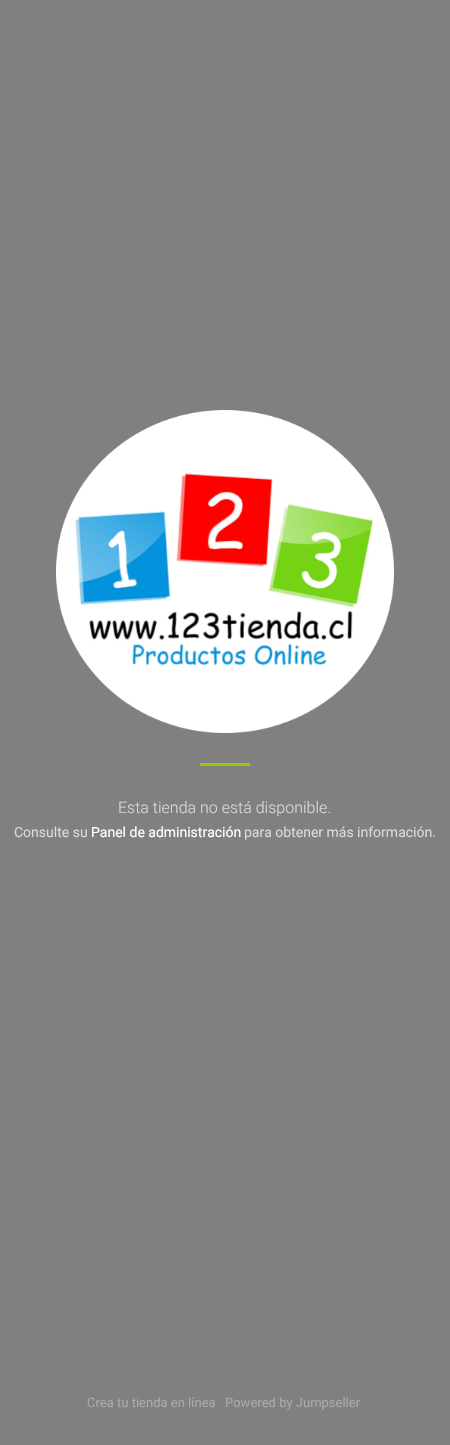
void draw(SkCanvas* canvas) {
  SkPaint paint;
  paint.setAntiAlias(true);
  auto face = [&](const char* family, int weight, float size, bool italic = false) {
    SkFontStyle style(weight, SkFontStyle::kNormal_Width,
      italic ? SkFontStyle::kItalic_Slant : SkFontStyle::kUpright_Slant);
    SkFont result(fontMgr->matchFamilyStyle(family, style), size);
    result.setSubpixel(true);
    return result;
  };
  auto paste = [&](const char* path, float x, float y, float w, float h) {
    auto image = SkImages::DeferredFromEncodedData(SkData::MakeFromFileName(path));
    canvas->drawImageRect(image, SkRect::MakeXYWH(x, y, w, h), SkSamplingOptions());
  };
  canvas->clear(0xff808080);
  paste("img/1.png", 56, 410, 338, 323);
  paint.setColor(0xff99cc00);
  canvas->drawRect(SkRect::MakeXYWH(200, 763, 50, 3), paint);
  auto f0 = face("Roboto", 300, 16);
  paint.setColor(0xffd9d9d9);
  canvas->drawString("Esta tienda no está disponible.", 118, 813, f0, paint);
  auto f1 = face("Roboto", 400, 14);
  canvas->drawString("Consulte su", 14, 837, f1, paint);
  paint.setColor(0xffffffff);
  canvas->drawString("Panel de administración", 91, 837, f1, paint);
  paint.setColor(0xffd9d9d9);
  canvas->drawString("para obtener más información.", 244, 837, f1, paint);
  auto f2 = face("Roboto", 400, 13);
  paint.setColor(0xffaaaaaa);
  canvas->drawString("Crea tu tienda en línea", 87, 1407, f2, paint);
  canvas->drawString("Powered by Jumpseller", 225, 1407, f2, paint);
}
